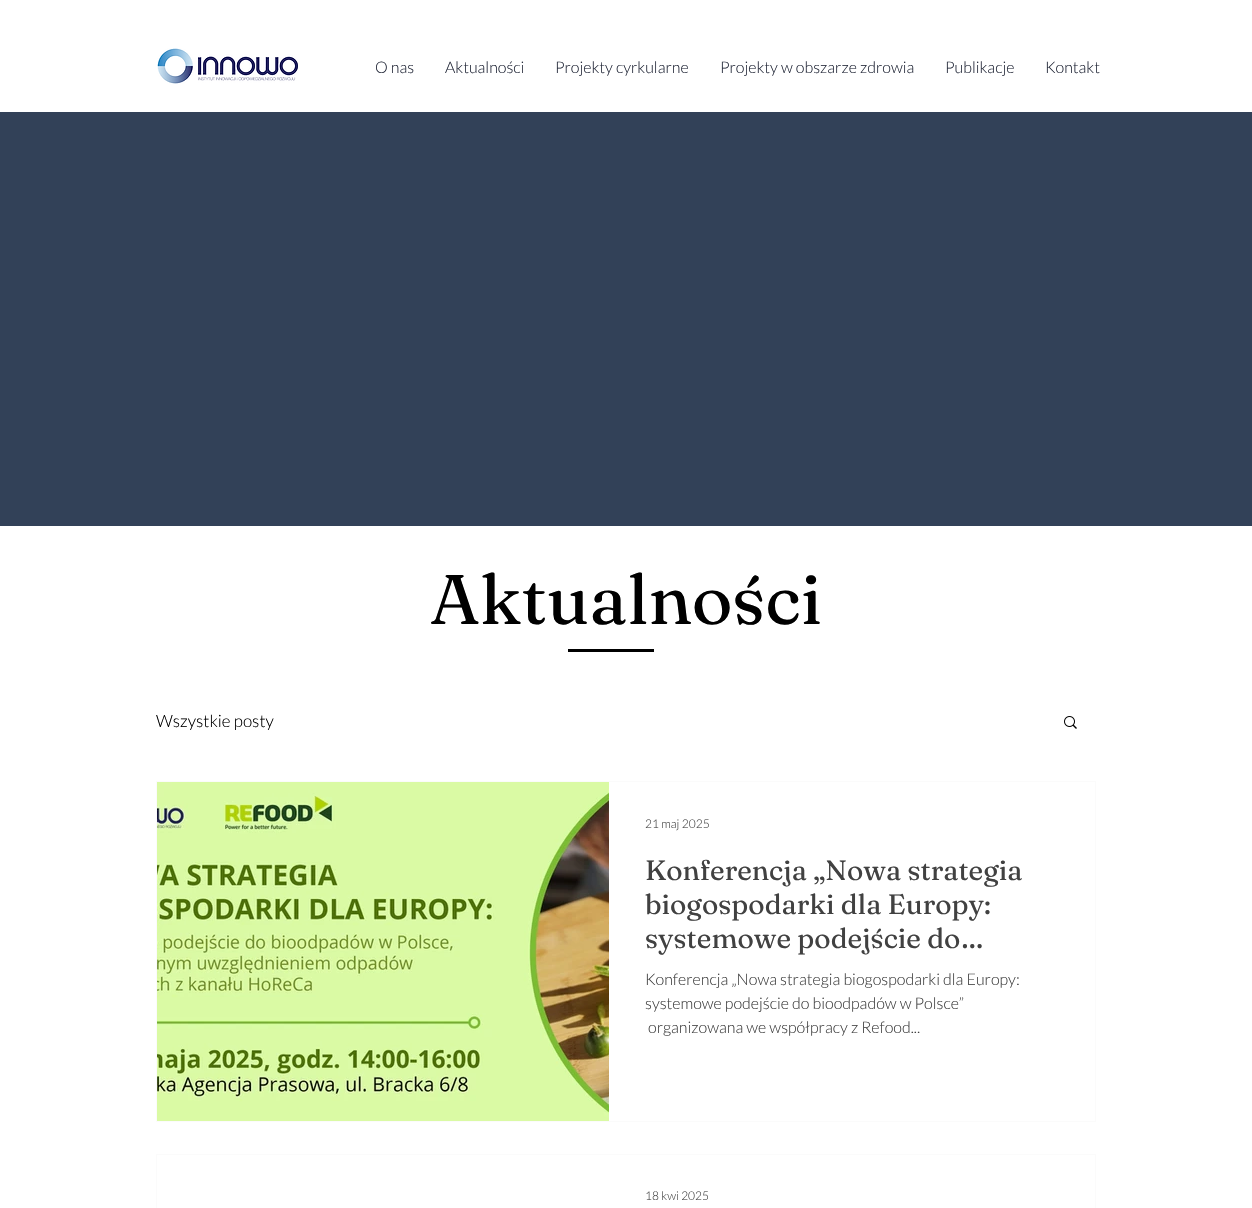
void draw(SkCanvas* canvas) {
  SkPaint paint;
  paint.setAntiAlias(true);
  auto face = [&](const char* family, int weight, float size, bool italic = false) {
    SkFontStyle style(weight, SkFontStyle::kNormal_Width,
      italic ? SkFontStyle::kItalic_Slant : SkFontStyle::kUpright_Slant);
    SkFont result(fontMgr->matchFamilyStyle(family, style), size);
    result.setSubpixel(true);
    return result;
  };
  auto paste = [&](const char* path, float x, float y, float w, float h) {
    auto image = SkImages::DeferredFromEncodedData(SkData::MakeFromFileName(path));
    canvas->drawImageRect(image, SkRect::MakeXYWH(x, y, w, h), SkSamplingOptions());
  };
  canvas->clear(0xffffffff);
  paste("img/1.png", 157, 48, 141, 36);
  paint.setColor(0xff324158);
  canvas->drawRect(SkRect::MakeXYWH(0, 112, 1252, 414), paint);
  paint.setColor(0xff000000);
  canvas->drawRect(SkRect::MakeXYWH(568, 649, 86, 3), paint);
  paste("img/2.png", 1064, 716, 13, 13);
  paint.setStroke(true);
  paint.setStrokeWidth(1);
  paint.setColor(0xfffbfbfb);
  canvas->drawRect(SkRect::MakeXYWH(156.5f, 781.5f, 939, 340), paint);
  paste("img/3.png", 157, 782, 452, 339);
  canvas->drawRect(SkRect::MakeXYWH(156.5f, 1154.5f, 939, 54), paint);
  auto f0 = face("Lato", 300, 16);
  paint.setStroke(false);
  paint.setColor(0xff262b3b);
  {
    const struct { const char* s; float x, y; } items[] = {
      {"O nas", 375, 73},
      {"Aktualności", 445, 73},
      {"Projekty cyrkularne", 555, 73},
      {"Projekty w obszarze zdrowia", 720, 73},
      {"Publikacje", 945, 73},
      {"Kontakt", 1045, 73},
    };
    for (auto [s, x, y] : items) {
      canvas->drawString(s, x, y, f0, paint);
    }
  }
  auto f1 = face("Fraunces", 400, 70);
  paint.setColor(0xff000000);
  canvas->drawString("Aktualności", 430, 624, f1, paint);
  auto f2 = face("Lato", 300, 17);
  canvas->drawString("Wszystkie posty", 156, 727, f2, paint);
  auto f3 = face("Lato", 300, 12);
  paint.setColor(0xff414141);
  canvas->drawString("21 maj 2025", 645, 828, f3, paint);
  auto f4 = face("Fraunces", 400, 28);
  {
    const struct { const char* s; float x, y; } items[] = {
      {"Konferencja „Nowa strategia", 645, 880},
      {"biogospodarki dla Europy:", 645, 914},
      {"systemowe podejście do…", 645, 948},
    };
    for (auto [s, x, y] : items) {
      canvas->drawString(s, x, y, f4, paint);
    }
  }
  {
    const struct { const char* s; float x, y; } items[] = {
      {"Konferencja „Nowa strategia biogospodarki dla Europy:", 645, 985},
      {"systemowe podejście do bioodpadów w Polsce”", 645, 1009},
      {"organizowana we współpracy z Refood...", 648, 1033},
    };
    for (auto [s, x, y] : items) {
      canvas->drawString(s, x, y, f0, paint);
    }
  }
  canvas->drawString("18 kwi 2025", 645, 1200, f3, paint);
}
